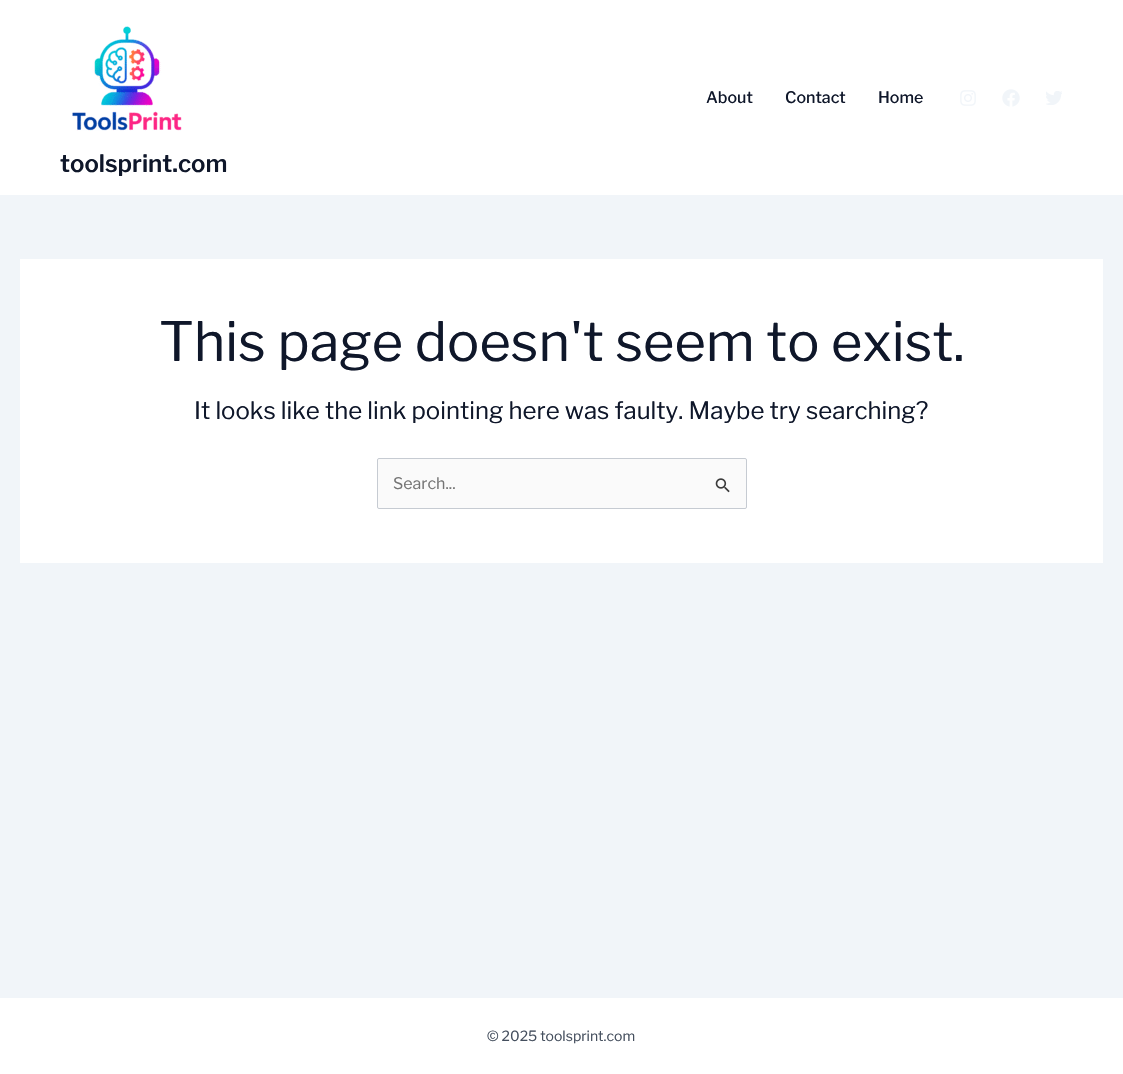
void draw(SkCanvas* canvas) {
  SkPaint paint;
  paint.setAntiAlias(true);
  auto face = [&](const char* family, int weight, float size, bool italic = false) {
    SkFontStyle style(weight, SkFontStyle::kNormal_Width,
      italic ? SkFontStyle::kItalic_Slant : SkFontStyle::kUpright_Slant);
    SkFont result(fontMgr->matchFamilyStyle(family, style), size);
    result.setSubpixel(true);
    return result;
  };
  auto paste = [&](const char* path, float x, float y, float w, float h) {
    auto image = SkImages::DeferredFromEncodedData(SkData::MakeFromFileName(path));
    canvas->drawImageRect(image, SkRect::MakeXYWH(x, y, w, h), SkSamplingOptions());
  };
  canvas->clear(0xfff1f5f9);
  paint.setColor(0xffffffff);
  canvas->drawRect(SkRect::MakeXYWH(0, 0, 1123, 195), paint);
  paste("img/1.png", 960, 90, 16, 16);
  paste("img/2.png", 1002, 89, 18, 18);
  paste("img/3.png", 1046, 91, 16, 14);
  paste("img/4.png", 72, 26, 110, 105);
  canvas->drawRect(SkRect::MakeXYWH(20, 259, 1083, 304), paint);
  paint.setColor(0xfffafafa);
  canvas->drawRoundRect(SkRect::MakeXYWH(377.5f, 458.5f, 369, 50), 1.5f, 1.5f, paint);
  paint.setStroke(true);
  paint.setStrokeWidth(1);
  paint.setColor(0xffc6cbd2);
  canvas->drawRoundRect(SkRect::MakeXYWH(377.5f, 458.5f, 369, 50), 1.5f, 1.5f, paint);
  paste("img/5.png", 715, 478, 15, 15);
  paint.setStroke(false);
  paint.setColor(0xffffffff);
  canvas->drawRect(SkRect::MakeXYWH(0, 998, 1123, 76), paint);
  auto f0 = face("Libre Franklin", 500, 16);
  paint.setColor(0xff0f172a);
  {
    const struct { const char* s; float x, y; } items[] = {
      {"About", 706, 103},
      {"Contact", 785, 103},
      {"Home", 878, 103},
    };
    for (auto [s, x, y] : items) {
      canvas->drawString(s, x, y, f0, paint);
    }
  }
  auto f1 = face("Libre Franklin", 600, 24);
  canvas->drawString("toolsprint.com", 60, 172, f1, paint);
  auto f2 = face("Libre Franklin", 400, 54);
  canvas->drawString("This page doesn't seem to exist.", 159, 361, f2, paint);
  auto f3 = face("Libre Franklin", 400, 24);
  canvas->drawString("It looks like the link pointing here was faulty. Maybe try searching?", 194, 419, f3, paint);
  auto f4 = face("Libre Franklin", 400, 16);
  paint.setColor(0xff757575);
  canvas->drawString("Search...", 393, 489, f4, paint);
  auto f5 = face("Libre Franklin", 400, 14);
  paint.setColor(0xff454f5e);
  canvas->drawString("© 2025 toolsprint.com", 487, 1041, f5, paint);
}
